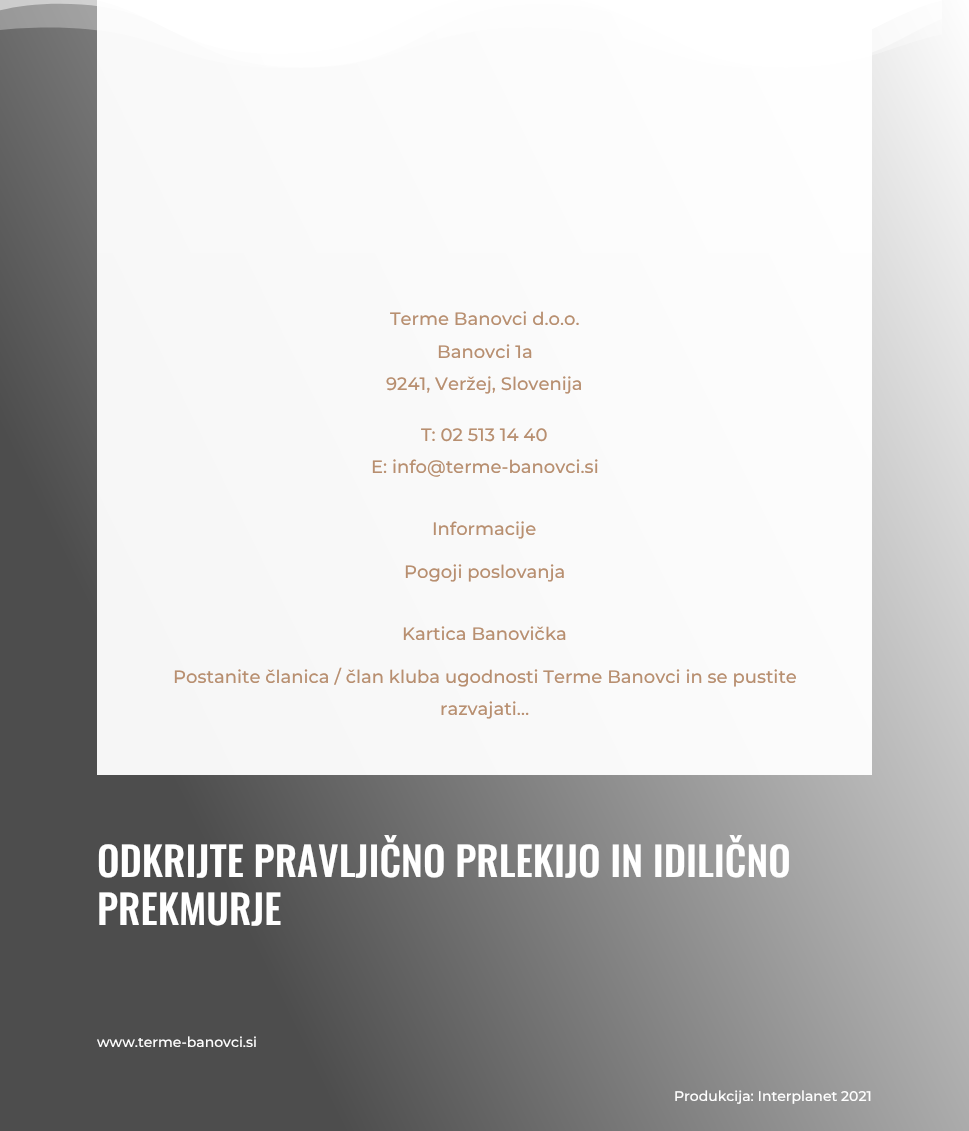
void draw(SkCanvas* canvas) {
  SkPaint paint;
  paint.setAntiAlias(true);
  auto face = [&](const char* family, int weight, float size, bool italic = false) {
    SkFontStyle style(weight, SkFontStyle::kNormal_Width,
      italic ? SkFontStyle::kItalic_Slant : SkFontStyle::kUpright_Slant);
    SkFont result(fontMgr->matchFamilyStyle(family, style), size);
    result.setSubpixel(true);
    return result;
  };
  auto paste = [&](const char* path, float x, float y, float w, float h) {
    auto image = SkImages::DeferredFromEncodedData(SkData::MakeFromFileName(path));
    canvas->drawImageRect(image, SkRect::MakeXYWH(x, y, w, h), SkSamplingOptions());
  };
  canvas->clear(0xffffffff);
  {
    const SkColor colors[] = {0xff4d4d4d, 0xffffffff};
    const float stops[] = {0.24f, 1};
    const SkPoint ends[] = {{-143, 897}, {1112, 285}};
    paint.setShader(SkGradientShader::MakeLinear(ends, colors, stops, 2, SkTileMode::kClamp));
    paint.setAlpha(255);
  }
  canvas->drawRect(SkRect::MakeXYWH(0, 0, 969, 1131), paint);
  {
    const SkColor colors[] = {0xfff6f6f6, 0xffffffff};
    const float stops[] = {0.24f, 1};
    const SkPoint ends[] = {{-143, 897}, {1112, 285}};
    paint.setShader(SkGradientShader::MakeLinear(ends, colors, stops, 2, SkTileMode::kClamp));
    paint.setAlpha(255);
  }
  canvas->drawRect(SkRect::MakeXYWH(97, 253, 775, 522), paint);
  paste("img/1.png", 0, 0, 942, 69);
  paint.setShader(nullptr);
  paint.setColor(0xf2ffffff);
  canvas->drawRect(SkRect::MakeXYWH(97, 0, 775, 253), paint);
  auto f0 = face("Montserrat", 100, 18);
  paint.setColor(0xffb88f70);
  {
    const struct { const char* s; float x, y; } items[] = {
      {"Terme Banovci d.o.o.", 390, 325},
      {"Banovci 1a", 437, 358},
      {"9241, Veržej, Slovenija", 386, 390},
      {"T: 02 513 14 40", 421, 441},
      {"E: info@terme-banovci.si", 371, 473},
      {"Informacije", 432, 535},
      {"Pogoji poslovanja", 404, 578},
      {"Kartica Banovička", 402, 640},
      {"Postanite članica / član kluba ugodnosti Terme Banovci in se pustite", 173, 683},
      {"razvajati…", 440, 715},
    };
    for (auto [s, x, y] : items) {
      canvas->drawString(s, x, y, f0, paint);
    }
  }
  auto f1 = face("Oswald", 500, 40);
  paint.setColor(0xffffffff);
  canvas->drawString("ODKRIJTE PRAVLJIČNO PRLEKIJO IN IDILIČNO", 97, 877, f1, paint);
  canvas->drawString("PREKMURJE", 97, 925, f1, paint);
  auto f2 = face("Montserrat", 100, 14);
  canvas->drawString("www.terme-banovci.si", 97, 1047, f2, paint);
  canvas->drawString("Produkcija: Interplanet 2021", 674, 1101, f2, paint);
}
